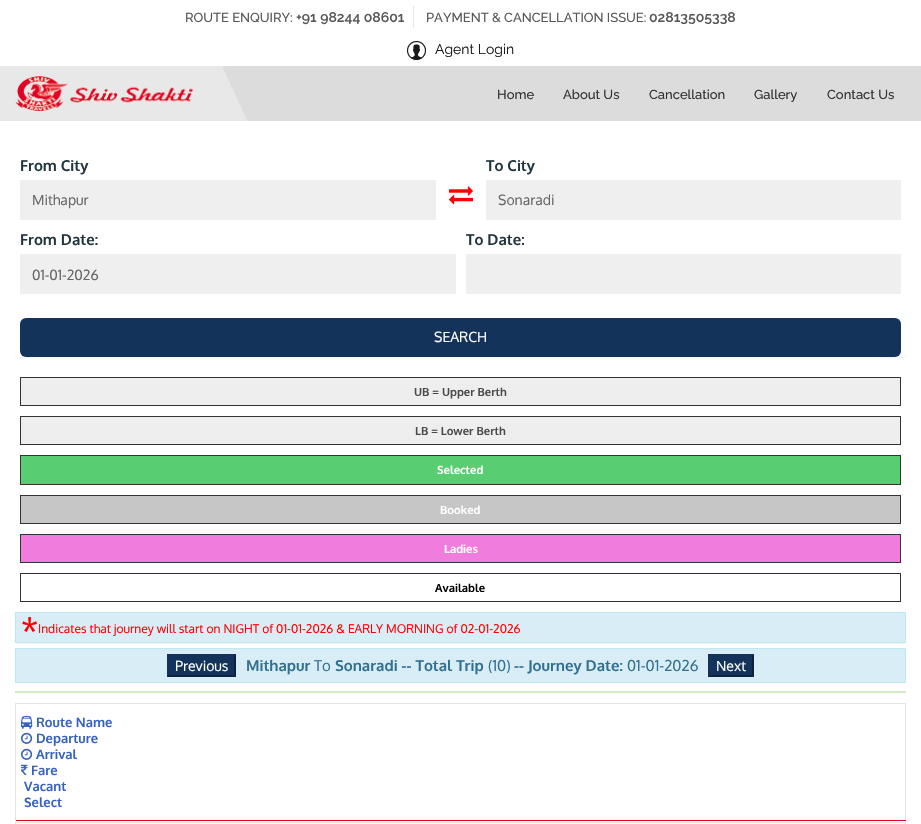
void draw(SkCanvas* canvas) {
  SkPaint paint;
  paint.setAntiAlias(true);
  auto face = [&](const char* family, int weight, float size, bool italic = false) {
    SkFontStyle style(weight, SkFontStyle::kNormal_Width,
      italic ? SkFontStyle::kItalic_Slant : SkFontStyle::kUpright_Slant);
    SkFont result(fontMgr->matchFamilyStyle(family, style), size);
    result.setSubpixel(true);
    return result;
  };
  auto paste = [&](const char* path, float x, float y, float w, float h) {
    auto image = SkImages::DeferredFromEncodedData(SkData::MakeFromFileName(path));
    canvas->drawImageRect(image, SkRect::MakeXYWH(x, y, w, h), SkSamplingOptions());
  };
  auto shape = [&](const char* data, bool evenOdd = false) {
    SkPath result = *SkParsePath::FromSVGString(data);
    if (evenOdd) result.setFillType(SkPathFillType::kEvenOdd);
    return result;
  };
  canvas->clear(0xffffffff);
  paint.setColor(0xffe6e6e6);
  canvas->drawRect(SkRect::MakeXYWH(413, 6, 1, 22), paint);
  paste("img/1.png", 407, 41, 19, 19);
  paint.setColor(0xffe8e8e8);
  canvas->drawRect(SkRect::MakeXYWH(0, 66, 248, 55), paint);
  paint.setColor(0xffdcdcdc);
  canvas->drawRect(SkRect::MakeXYWH(248, 66, 673, 55), paint);
  paste("img/2.png", 222, 66, 26, 55);
  paste("img/3.png", 15, 76, 178, 35);
  paint.setColor(0x0d000000);
  paint.setMaskFilter(SkMaskFilter::MakeBlur(kNormal_SkBlurStyle, 0.5f));
  canvas->drawRoundRect(SkRect::MakeXYWH(15, 142, 891, 216), 4, 4, paint);
  paint.setMaskFilter(nullptr);
  paint.setColor(0xffffffff);
  canvas->drawRoundRect(SkRect::MakeXYWH(15, 141, 891, 216), 4, 4, paint);
  paint.setColor(0xffefefef);
  canvas->drawRect(SkRect::MakeXYWH(20, 180, 416, 40), paint);
  paste("img/4.png", 449, 186, 24, 19);
  {
    const struct { float x, y, w, h; SkColor color; } items[] = {
      {486, 180, 415, 40, 0xffefefef},
      {20, 254, 436, 40, 0xffefefef},
      {466, 254, 435, 40, 0xffefefef},
    };
    for (auto [x, y, w, h, color] : items) {
      paint.setColor(color);
      canvas->drawRect(SkRect::MakeXYWH(x, y, w, h), paint);
    }
  }
  paint.setColor(0xff14335b);
  canvas->drawRoundRect(SkRect::MakeXYWH(20, 318, 881, 39), 6, 6, paint);
  paint.setColor(0xffeeeeee);
  canvas->drawRect(SkRect::MakeXYWH(20.5f, 377.5f, 880, 28), paint);
  paint.setStroke(true);
  paint.setStrokeWidth(1);
  paint.setColor(0xff333333);
  canvas->drawRect(SkRect::MakeXYWH(20.5f, 377.5f, 880, 28), paint);
  paint.setStroke(false);
  paint.setColor(0xffeeeeee);
  canvas->drawRect(SkRect::MakeXYWH(20.5f, 416.5f, 880, 28), paint);
  paint.setStroke(true);
  paint.setColor(0xff333333);
  canvas->drawRect(SkRect::MakeXYWH(20.5f, 416.5f, 880, 28), paint);
  paint.setStroke(false);
  paint.setColor(0xff58cd71);
  canvas->drawRect(SkRect::MakeXYWH(20.5f, 455.5f, 880, 29), paint);
  paint.setStroke(true);
  paint.setColor(0xff333333);
  canvas->drawRect(SkRect::MakeXYWH(20.5f, 455.5f, 880, 29), paint);
  paint.setStroke(false);
  paint.setColor(0xffc6c6c6);
  canvas->drawRect(SkRect::MakeXYWH(20.5f, 495.5f, 880, 28), paint);
  paint.setStroke(true);
  paint.setColor(0xff333333);
  canvas->drawRect(SkRect::MakeXYWH(20.5f, 495.5f, 880, 28), paint);
  paint.setStroke(false);
  paint.setColor(0xfff07cde);
  canvas->drawRect(SkRect::MakeXYWH(20.5f, 534.5f, 880, 28), paint);
  paint.setStroke(true);
  paint.setColor(0xff333333);
  canvas->drawRect(SkRect::MakeXYWH(20.5f, 534.5f, 880, 28), paint);
  canvas->drawRect(SkRect::MakeXYWH(20.5f, 573.5f, 880, 28), paint);
  paint.setStroke(false);
  paint.setColor(0x0d000000);
  paint.setMaskFilter(SkMaskFilter::MakeBlur(kNormal_SkBlurStyle, 0.5f));
  canvas->drawRoundRect(SkRect::MakeXYWH(15, 613, 891, 31), 4, 4, paint);
  paint.setMaskFilter(nullptr);
  paint.setColor(0xffd9edf7);
  canvas->drawRect(SkRect::MakeXYWH(15.5f, 612.5f, 890, 30), paint);
  paint.setStroke(true);
  paint.setColor(0xffbce8f1);
  canvas->drawRect(SkRect::MakeXYWH(15.5f, 612.5f, 890, 30), paint);
  paint.setStroke(false);
  paint.setColor(0xffd9edf7);
  canvas->drawRect(SkRect::MakeXYWH(15.5f, 648.5f, 890, 34), paint);
  paint.setStroke(true);
  paint.setColor(0xffbce8f1);
  canvas->drawRect(SkRect::MakeXYWH(15.5f, 648.5f, 890, 34), paint);
  paint.setStroke(false);
  paint.setColor(0xff14335b);
  canvas->drawRect(SkRect::MakeXYWH(167, 654, 69, 23), paint);
  paint.setColor(0xff0d223d);
  canvas->drawPath(shape("M236 654V677L234 675V656Z"), paint);
  canvas->drawPath(shape("M236 677H167L169 675H234Z"), paint);
  paint.setColor(0xff14335b);
  canvas->drawPath(shape("M167 677V654L169 656V675Z"), paint);
  canvas->drawRect(SkRect::MakeXYWH(708, 654, 46, 23), paint);
  paint.setColor(0xff0d223d);
  canvas->drawPath(shape("M754 654V677L752 675V656Z"), paint);
  canvas->drawPath(shape("M754 677H708L710 675H752Z"), paint);
  paint.setColor(0xff14335b);
  canvas->drawPath(shape("M708 677V654L710 656V675Z"), paint);
  {
    const struct { float x, y, w, h; SkColor color; } items[] = {
      {15, 691, 891, 2, 0xffd6e9c6},
      {15, 703, 891, 1, 0xffe3e3e3},
      {905, 703, 1, 118, 0xffe3e3e3},
      {15, 820, 891, 1, 0xffe00024},
      {15, 703, 1, 118, 0xffe3e3e3},
    };
    for (auto [x, y, w, h, color] : items) {
      paint.setColor(color);
      canvas->drawRect(SkRect::MakeXYWH(x, y, w, h), paint);
    }
  }
  paste("img/5.png", 21, 715, 12, 14);
  paste("img/6.png", 21, 732, 12, 12);
  paste("img/6.png", 21, 748, 12, 12);
  paste("img/7.png", 21, 764, 7, 11);
  {
    const struct { float x, y, w, h; SkColor color; } items[] = {
      {15, 823, 891, 1, 0xfffbf7f0},
      {16, 822, 889, 1, 0xffeeebe4},
      {905, 822, 1, 2, 0xffe3e3e3},
      {15, 822, 1, 2, 0xffe3e3e3},
    };
    for (auto [x, y, w, h, color] : items) {
      paint.setColor(color);
      canvas->drawRect(SkRect::MakeXYWH(x, y, w, h), paint);
    }
  }
  auto f0 = face("Raleway", 500, 13);
  paint.setColor(0xff575757);
  canvas->drawString("ROUTE ENQUIRY:", 185, 22, f0, paint);
  auto f1 = face("Raleway", 600, 14);
  canvas->drawString("+91 98244 08601", 296, 22, f1, paint);
  canvas->drawString("PAYMENT & CANCELLATION ISSUE:", 426, 22, f0, paint);
  canvas->drawString("02813505338", 649, 22, f1, paint);
  auto f2 = face("Raleway", 400, 14);
  paint.setColor(0xff191919);
  canvas->drawString("Agent Login", 435, 54, f2, paint);
  paint.setColor(0xff333333);
  {
    const struct { const char* s; float x, y; } items[] = {
      {"Home", 497, 99},
      {"About Us", 563, 99},
      {"Cancellation", 649, 99},
      {"Gallery", 754, 99},
      {"Contact Us", 827, 99},
    };
    for (auto [s, x, y] : items) {
      canvas->drawString(s, x, y, f0, paint);
    }
  }
  auto f3 = face("Oxygen", 700, 15);
  paint.setColor(0xff21353f);
  canvas->drawString("From City", 20, 171, f3, paint);
  auto f4 = face("Oxygen", 400, 14);
  paint.setColor(0xff666666);
  canvas->drawString("Mithapur", 32, 205, f4, paint);
  paint.setColor(0xff21353f);
  canvas->drawString("To City", 486, 171, f3, paint);
  paint.setColor(0xff666666);
  canvas->drawString("Sonaradi", 498, 205, f4, paint);
  paint.setColor(0xff21353f);
  canvas->drawString("From Date:", 20, 245, f3, paint);
  paint.setColor(0xff666666);
  canvas->drawString("01-01-2026", 32, 280, f4, paint);
  paint.setColor(0xff21353f);
  canvas->drawString("To Date:", 466, 245, f3, paint);
  paint.setColor(0xffffffff);
  canvas->drawString("SEARCH", 434, 342, f4, paint);
  auto f5 = face("Oxygen", 700, 11.25f);
  paint.setColor(0xff4a4a4a);
  canvas->drawString("UB = Upper Berth", 414, 396, f5, paint);
  canvas->drawString("LB = Lower Berth", 415, 435, f5, paint);
  paint.setColor(0xffffffff);
  {
    const struct { const char* s; float x, y; } items[] = {
      {"Selected", 437, 474},
      {"Booked", 440, 514},
      {"Ladies", 444, 553},
    };
    for (auto [s, x, y] : items) {
      canvas->drawString(s, x, y, f5, paint);
    }
  }
  paint.setColor(0xff000000);
  canvas->drawString("Available", 435, 592, f5, paint);
  auto f6 = face("Oxygen", 400, 32);
  paint.setColor(0xffff0000);
  canvas->drawString("*", 21, 641, f6, paint);
  auto f7 = face("Oxygen", 400, 12);
  canvas->drawString("Indicates that journey will start on NIGHT of 01-01-2026 & EARLY MORNING of 02-01-2026", 38, 633, f7, paint);
  paint.setColor(0xffffffff);
  canvas->drawString("Previous", 175, 671, f4, paint);
  paint.setColor(0xff31708f);
  canvas->drawString("Mithapur", 246, 671, f3, paint);
  auto f8 = face("Oxygen", 400, 15);
  canvas->drawString("To", 314, 671, f8, paint);
  canvas->drawString("Sonaradi -- Total Trip", 335, 671, f3, paint);
  canvas->drawString("(10)", 488, 671, f8, paint);
  canvas->drawString("-- Journey Date:", 514, 671, f3, paint);
  canvas->drawString("01-01-2026", 627, 671, f8, paint);
  paint.setColor(0xffffffff);
  canvas->drawString("Next", 716, 671, f4, paint);
  auto f9 = face("Oxygen", 700, 13);
  paint.setColor(0xff3662bc);
  {
    const struct { const char* s; float x, y; } items[] = {
      {"Route Name", 36, 727},
      {"Departure", 36, 743},
      {"Arrival", 36, 759},
      {"Fare", 31, 775},
      {"Vacant", 24, 791},
      {"Select", 24, 807},
    };
    for (auto [s, x, y] : items) {
      canvas->drawString(s, x, y, f9, paint);
    }
  }
}
